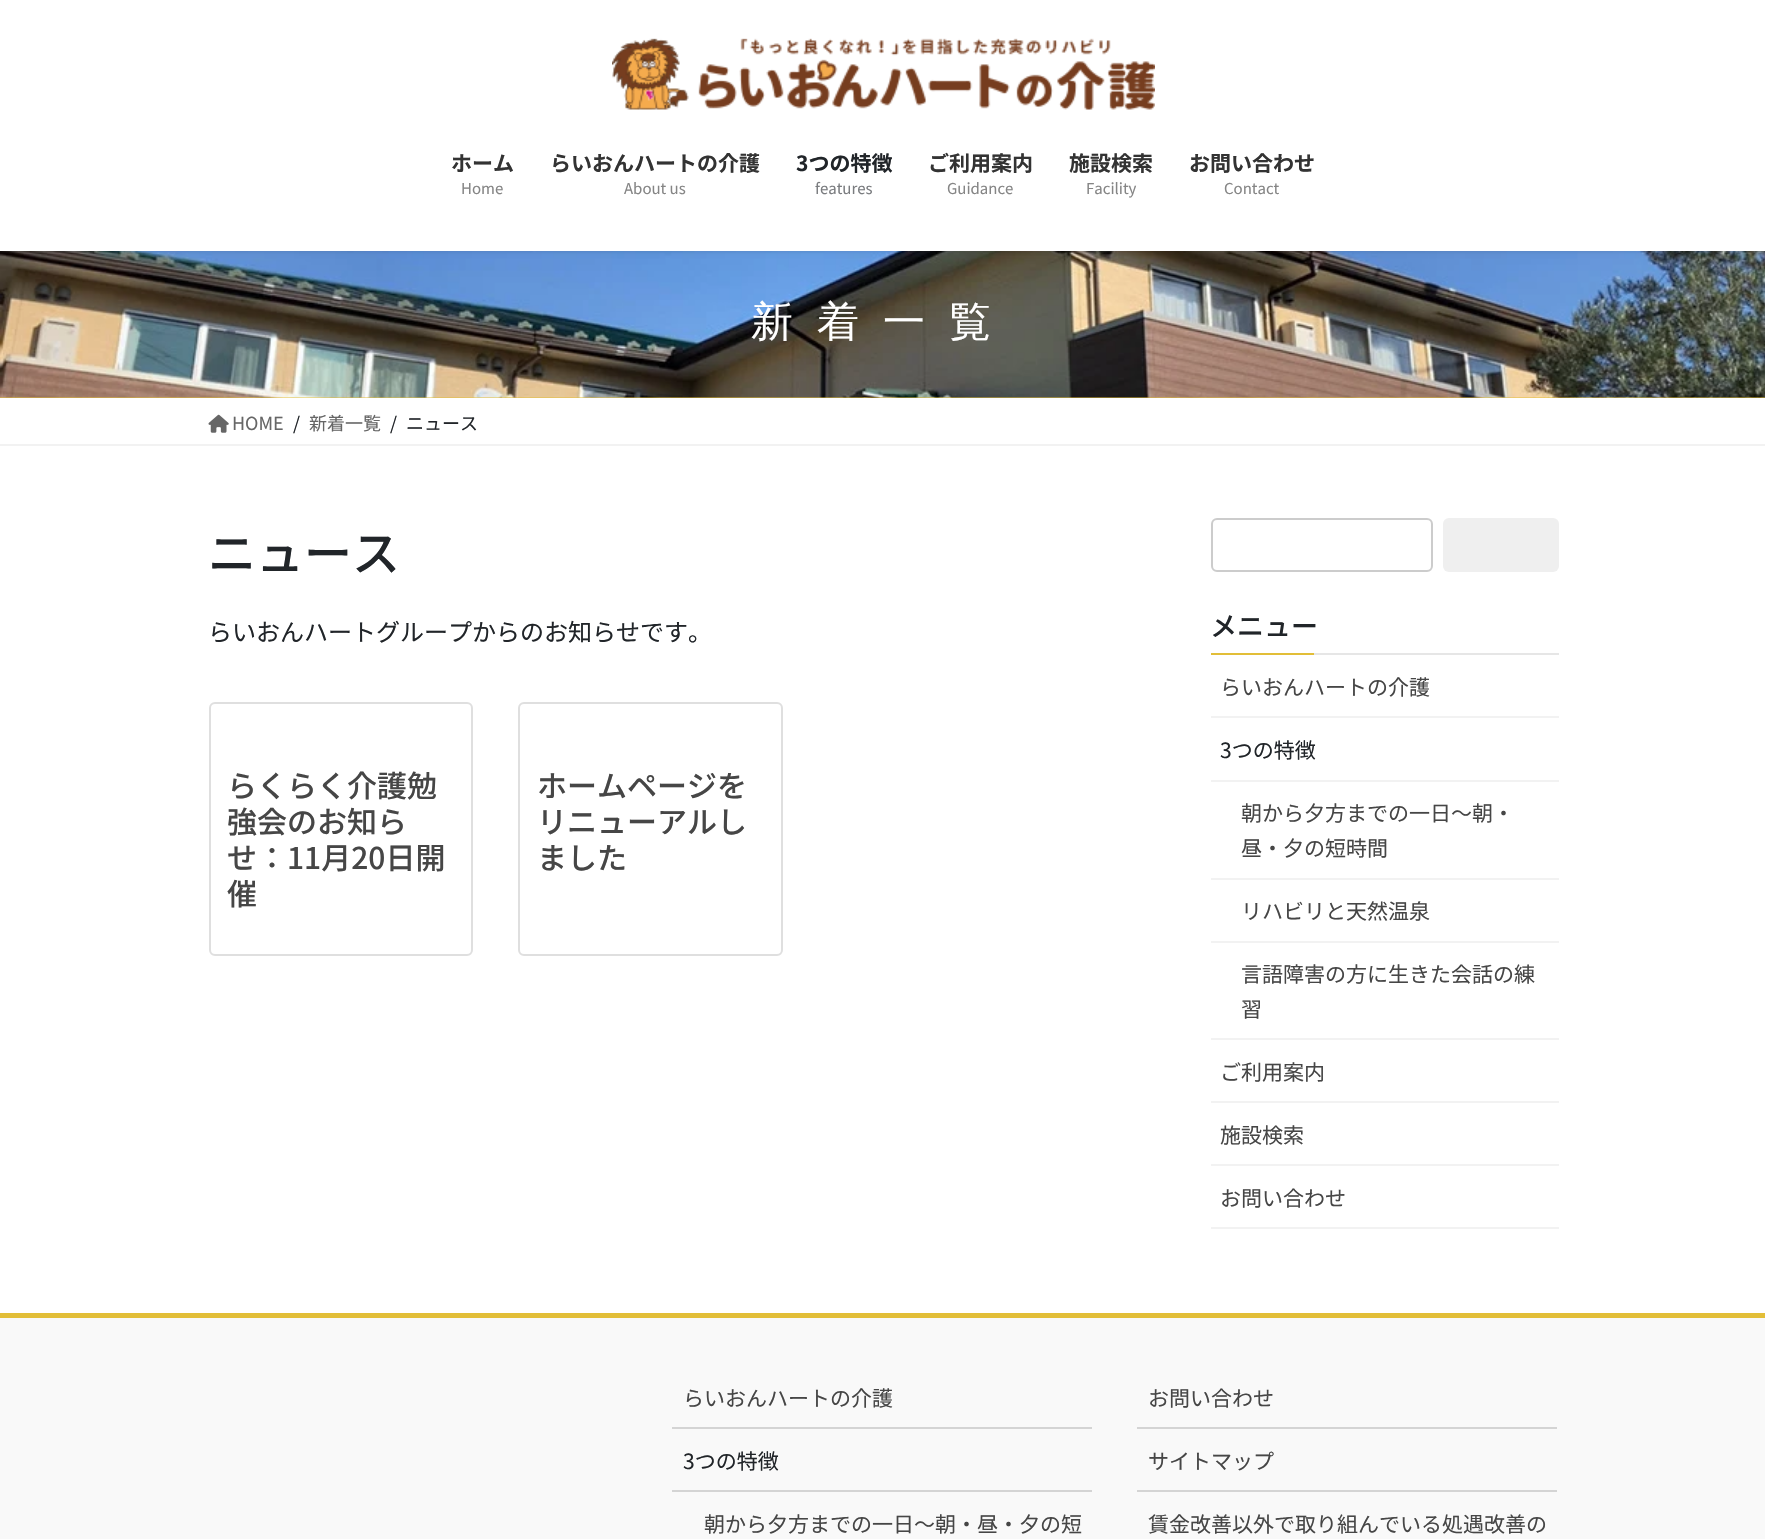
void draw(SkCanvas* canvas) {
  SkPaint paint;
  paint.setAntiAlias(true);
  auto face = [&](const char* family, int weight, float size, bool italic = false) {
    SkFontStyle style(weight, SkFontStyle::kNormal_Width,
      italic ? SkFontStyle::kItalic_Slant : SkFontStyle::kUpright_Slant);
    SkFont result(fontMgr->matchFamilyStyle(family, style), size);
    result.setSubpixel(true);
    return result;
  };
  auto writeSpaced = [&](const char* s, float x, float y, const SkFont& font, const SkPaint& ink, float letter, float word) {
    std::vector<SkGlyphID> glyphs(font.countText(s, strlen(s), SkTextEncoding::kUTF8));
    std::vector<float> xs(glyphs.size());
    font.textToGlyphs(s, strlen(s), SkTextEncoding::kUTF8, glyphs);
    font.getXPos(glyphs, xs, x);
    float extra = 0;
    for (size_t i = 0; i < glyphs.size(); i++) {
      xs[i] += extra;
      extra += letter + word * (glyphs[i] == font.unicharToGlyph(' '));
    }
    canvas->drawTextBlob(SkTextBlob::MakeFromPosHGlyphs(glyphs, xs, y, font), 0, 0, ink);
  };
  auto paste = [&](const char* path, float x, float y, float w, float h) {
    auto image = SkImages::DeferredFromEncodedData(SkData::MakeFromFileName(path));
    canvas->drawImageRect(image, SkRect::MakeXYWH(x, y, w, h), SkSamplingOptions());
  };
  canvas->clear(0xffffffff);
  paint.setColor(0xffe2be38);
  canvas->drawRect(SkRect::MakeXYWH(0, 397, 1765, 1), paint);
  paste("img/2.png", 0, 251, 1765, 147);
  paint.setColor(0x1a000000);
  paint.setMaskFilter(SkMaskFilter::MakeBlur(kNormal_SkBlurStyle, 2));
  canvas->drawRect(SkRect::MakeXYWH(0, 2, 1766, 250), paint);
  paint.setMaskFilter(nullptr);
  paint.setColor(0xffffffff);
  canvas->drawRect(SkRect::MakeXYWH(0, 0, 1765, 251), paint);
  paste("img/1.png", 612, 38, 543, 72);
  paint.setColor(0xfff2f2f2);
  canvas->drawRect(SkRect::MakeXYWH(0, 444, 1765, 2), paint);
  paste("img/3.png", 208, 414, 21, 19);
  paint.setStroke(true);
  paint.setStrokeWidth(2);
  paint.setColor(0xffdfdfdf);
  canvas->drawRoundRect(SkRect::MakeXYWH(210, 703, 262, 252), 5, 5, paint);
  canvas->drawRoundRect(SkRect::MakeXYWH(519, 703, 263, 252), 5, 5, paint);
  paint.setColor(0xffcccccc);
  canvas->drawRoundRect(SkRect::MakeXYWH(1212, 519, 220, 52), 5, 5, paint);
  paint.setStroke(false);
  paint.setColor(0xffefefef);
  canvas->drawRoundRect(SkRect::MakeXYWH(1443, 518, 116, 54), 6, 6, paint);
  {
    const struct { float x, y, w, h; SkColor color; } items[] = {
      {1314, 653, 245, 2, 0xffe6e6e6},
      {1211, 653, 103, 2, 0xffe2be38},
      {1211, 716, 348, 2, 0xfff2f2f2},
      {1211, 780, 348, 2, 0xfff2f2f2},
      {1211, 878, 348, 2, 0xfff2f2f2},
      {1211, 941, 348, 2, 0xfff2f2f2},
      {1211, 1038, 348, 2, 0xfff2f2f2},
      {1211, 1101, 348, 2, 0xfff2f2f2},
      {1211, 1164, 348, 2, 0xfff2f2f2},
      {1211, 1227, 348, 2, 0xfff2f2f2},
      {0, 1318, 1765, 221, 0xfff9f9f9},
      {0, 1313, 1765, 5, 0xffe2be38},
      {672, 1427, 420, 2, 0xffd4d4d4},
      {672, 1490, 420, 2, 0xffd4d4d4},
      {1137, 1427, 420, 2, 0xffd4d4d4},
      {1137, 1490, 420, 2, 0xffd4d4d4},
    };
    for (auto [x, y, w, h, color] : items) {
      paint.setColor(color);
      canvas->drawRect(SkRect::MakeXYWH(x, y, w, h), paint);
    }
  }
  auto f0 = face("Noto Sans JP", 700, 21);
  paint.setColor(0xff333333);
  canvas->drawString("ホーム", 451, 171, f0, paint);
  auto f1 = face("Noto Sans JP", 400, 15);
  paint.setColor(0xff858585);
  canvas->drawString("Home", 461, 194, f1, paint);
  paint.setColor(0xff333333);
  canvas->drawString("らいおんハートの介護", 550, 171, f0, paint);
  paint.setColor(0xff858585);
  canvas->drawString("About us", 624, 194, f1, paint);
  paint.setColor(0xff212529);
  canvas->drawString("3つの特徴", 796, 171, f0, paint);
  paint.setColor(0xff7a7c7f);
  canvas->drawString("features", 815, 194, f1, paint);
  paint.setColor(0xff333333);
  canvas->drawString("ご利用案内", 928, 171, f0, paint);
  paint.setColor(0xff858585);
  canvas->drawString("Guidance", 947, 194, f1, paint);
  paint.setColor(0xff333333);
  canvas->drawString("施設検索", 1069, 171, f0, paint);
  paint.setColor(0xff858585);
  canvas->drawString("Facility", 1086, 194, f1, paint);
  paint.setColor(0xff333333);
  canvas->drawString("お問い合わせ", 1189, 171, f0, paint);
  paint.setColor(0xff858585);
  canvas->drawString("Contact", 1224, 194, f1, paint);
  auto f2 = face("WenQuanYi Zen Hei", 500, 42);
  paint.setColor(0xffffffff);
  writeSpaced("新着一覧", 751, 336, f2, paint, 24, 0);
  auto f3 = face("Noto Sans JP", 400, 18);
  paint.setColor(0xff666666);
  canvas->drawString("HOME", 232, 430, f3, paint);
  paint.setColor(0xff212529);
  canvas->drawString("/", 293, 430, f3, paint);
  paint.setColor(0xff666666);
  canvas->drawString("新着一覧", 309, 430, f3, paint);
  paint.setColor(0xff212529);
  canvas->drawString("/", 390, 430, f3, paint);
  canvas->drawString("ニュース", 406, 430, f3, paint);
  auto f4 = face("Noto Sans JP", 500, 48);
  canvas->drawString("ニュース", 208, 571, f4, paint);
  auto f5 = face("Noto Sans JP", 400, 24);
  canvas->drawString("らいおんハートグループからのお知らせです。", 208, 641, f5, paint);
  auto f6 = face("Noto Sans JP", 500, 30);
  paint.setColor(0xff464646);
  {
    const struct { const char* s; float x, y; } items[] = {
      {"らくらく介護勉", 227, 797},
      {"強会のお知ら", 227, 833},
      {"せ：11月20日開", 227, 869},
      {"催", 227, 905},
      {"ホームページを", 537, 797},
      {"リニューアルし", 537, 833},
      {"ました", 537, 869},
    };
    for (auto [s, x, y] : items) {
      canvas->drawString(s, x, y, f6, paint);
    }
  }
  auto f7 = face("Noto Sans JP", 500, 27);
  paint.setColor(0xff212529);
  canvas->drawString("メニュー", 1210, 636, f7, paint);
  auto f8 = face("Noto Sans JP", 400, 21);
  paint.setColor(0xff464646);
  canvas->drawString("らいおんハートの介護", 1220, 695, f8, paint);
  paint.setColor(0xff212529);
  canvas->drawString("3つの特徴", 1220, 758, f8, paint);
  paint.setColor(0xff464646);
  {
    const struct { const char* s; float x, y; } items[] = {
      {"朝から夕方までの一日～朝・", 1241, 821},
      {"昼・夕の短時間", 1241, 856},
      {"リハビリと天然温泉", 1241, 919},
      {"言語障害の方に生きた会話の練", 1241, 982},
      {"習", 1241, 1017},
      {"ご利用案内", 1220, 1080},
      {"施設検索", 1220, 1143},
      {"お問い合わせ", 1220, 1206},
      {"らいおんハートの介護", 683, 1406},
    };
    for (auto [s, x, y] : items) {
      canvas->drawString(s, x, y, f8, paint);
    }
  }
  paint.setColor(0xff212529);
  canvas->drawString("3つの特徴", 683, 1469, f8, paint);
  paint.setColor(0xff464646);
  {
    const struct { const char* s; float x, y; } items[] = {
      {"朝から夕方までの一日～朝・昼・夕の短", 704, 1532},
      {"お問い合わせ", 1148, 1406},
      {"サイトマップ", 1148, 1469},
      {"賃金改善以外で取り組んでいる処遇改善の", 1148, 1532},
    };
    for (auto [s, x, y] : items) {
      canvas->drawString(s, x, y, f8, paint);
    }
  }
}
